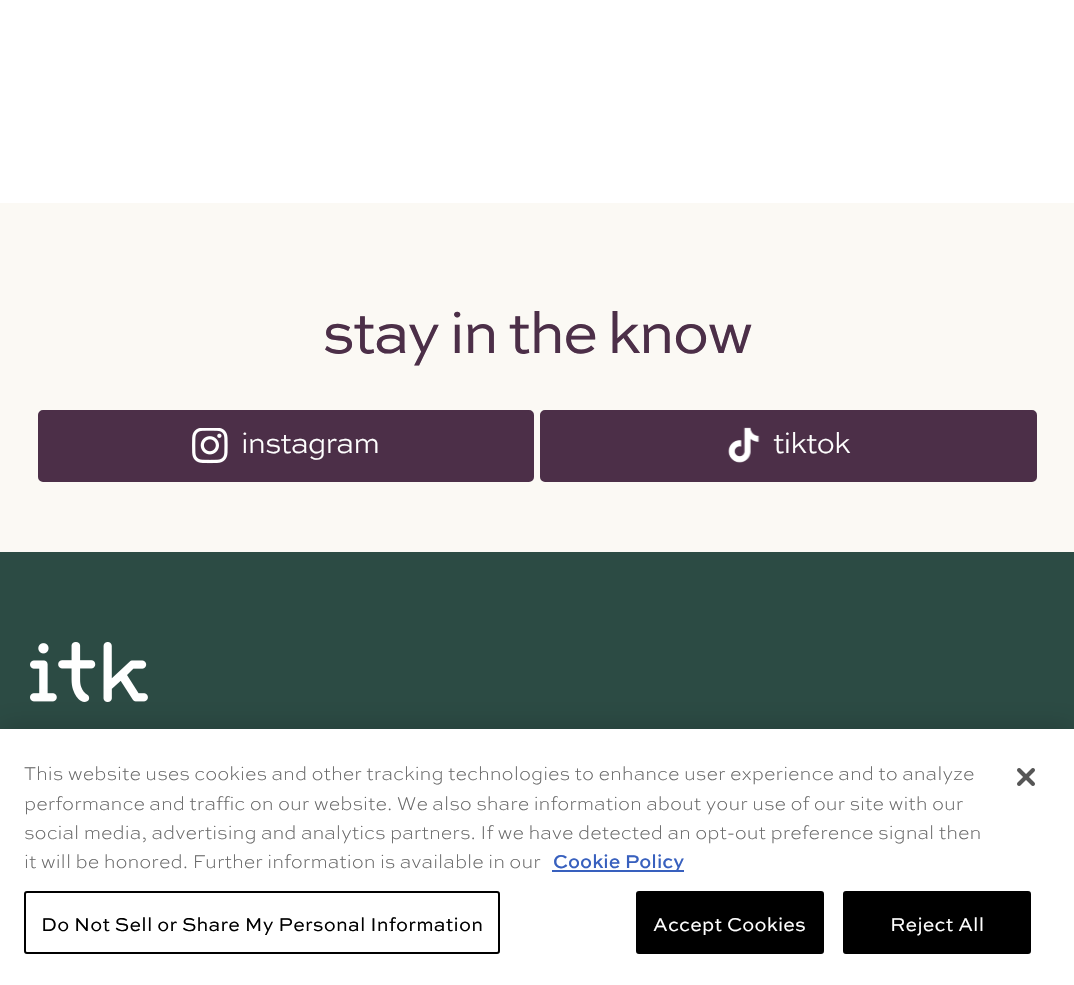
void draw(SkCanvas* canvas) {
  SkPaint paint;
  paint.setAntiAlias(true);
  auto face = [&](const char* family, int weight, float size, bool italic = false) {
    SkFontStyle style(weight, SkFontStyle::kNormal_Width,
      italic ? SkFontStyle::kItalic_Slant : SkFontStyle::kUpright_Slant);
    SkFont result(fontMgr->matchFamilyStyle(family, style), size);
    result.setSubpixel(true);
    return result;
  };
  auto writeSpaced = [&](const char* s, float x, float y, const SkFont& font, const SkPaint& ink, float letter, float word) {
    std::vector<SkGlyphID> glyphs(font.countText(s, strlen(s), SkTextEncoding::kUTF8));
    std::vector<float> xs(glyphs.size());
    font.textToGlyphs(s, strlen(s), SkTextEncoding::kUTF8, glyphs);
    font.getXPos(glyphs, xs, x);
    float extra = 0;
    for (size_t i = 0; i < glyphs.size(); i++) {
      xs[i] += extra;
      extra += letter + word * (glyphs[i] == font.unicharToGlyph(' '));
    }
    canvas->drawTextBlob(SkTextBlob::MakeFromPosHGlyphs(glyphs, xs, y, font), 0, 0, ink);
  };
  auto paste = [&](const char* path, float x, float y, float w, float h) {
    auto image = SkImages::DeferredFromEncodedData(SkData::MakeFromFileName(path));
    canvas->drawImageRect(image, SkRect::MakeXYWH(x, y, w, h), SkSamplingOptions());
  };
  canvas->clear(0xffffffff);
  paint.setColor(0xfffbf9f4);
  canvas->drawRect(SkRect::MakeXYWH(0, 203, 1074, 349), paint);
  paint.setColor(0xff4c2f48);
  canvas->drawRoundRect(SkRect::MakeXYWH(39.5f, 411.5f, 493, 69), 3.5f, 3.5f, paint);
  paint.setStroke(true);
  paint.setStrokeWidth(3);
  canvas->drawRoundRect(SkRect::MakeXYWH(39.5f, 411.5f, 493, 69), 3.5f, 3.5f, paint);
  paste("img/1.png", 192, 428, 36, 36);
  paint.setStroke(false);
  canvas->drawRoundRect(SkRect::MakeXYWH(541.5f, 411.5f, 494, 69), 3.5f, 3.5f, paint);
  paint.setStroke(true);
  canvas->drawRoundRect(SkRect::MakeXYWH(541.5f, 411.5f, 494, 69), 3.5f, 3.5f, paint);
  paste("img/2.png", 728, 427, 32, 36);
  paint.setStroke(false);
  paint.setColor(0xff2c4b44);
  canvas->drawRect(SkRect::MakeXYWH(0, 552, 1074, 177), paint);
  paste("img/3.png", 30, 642, 118, 60);
  paint.setColor(0x33000000);
  paint.setMaskFilter(SkMaskFilter::MakeBlur(kNormal_SkBlurStyle, 13.5f));
  canvas->drawRect(SkRect::MakeXYWH(0, 729, 1074, 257), paint);
  paint.setMaskFilter(nullptr);
  paint.setColor(0xffffffff);
  canvas->drawRect(SkRect::MakeXYWH(0, 729, 1074, 256), paint);
  paint.setColor(0xff3860be);
  canvas->drawRect(SkRect::MakeXYWH(552, 870, 132, 2), paint);
  paint.setStroke(true);
  paint.setStrokeWidth(2);
  paint.setColor(0xff000000);
  canvas->drawRoundRect(SkRect::MakeXYWH(25, 892, 474, 61), 2, 2, paint);
  paint.setStroke(false);
  canvas->drawRoundRect(SkRect::MakeXYWH(637, 892, 186, 61), 2, 2, paint);
  paint.setStroke(true);
  canvas->drawRoundRect(SkRect::MakeXYWH(637, 892, 186, 61), 2, 2, paint);
  paint.setStroke(false);
  canvas->drawRoundRect(SkRect::MakeXYWH(844, 892, 186, 61), 2, 2, paint);
  paint.setStroke(true);
  canvas->drawRoundRect(SkRect::MakeXYWH(844, 892, 186, 61), 2, 2, paint);
  paste("img/4.png", 1017, 768, 18, 18);
  auto f0 = face("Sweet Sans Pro", 400, 60);
  paint.setStroke(false);
  paint.setColor(0xff4c2f48);
  writeSpaced("stay in the know", 322, 353, f0, paint, -2.4f, 0);
  auto f1 = face("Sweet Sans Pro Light", 300, 30);
  paint.setColor(0xffffffff);
  writeSpaced("instagram", 241, 453, f1, paint, -1, 0);
  writeSpaced("tiktok", 773, 453, f1, paint, -1, 0);
  auto f2 = face("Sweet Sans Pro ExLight", 300, 19.5f);
  paint.setColor(0xff696969);
  {
    const struct { const char* s; float x, y; } items[] = {
      {"This website uses cookies and other tracking technologies to enhance user experience and to analyze", 24, 780},
      {"performance and traffic on our website. We also share information about your use of our site with our", 24, 810},
      {"social media, advertising and analytics partners. If we have detected an opt-out preference signal then", 24, 839},
      {"it will be honored. Further information is available in our", 24, 868},
    };
    for (auto [s, x, y] : items) {
      canvas->drawString(s, x, y, f2, paint);
    }
  }
  auto f3 = face("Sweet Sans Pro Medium", 500, 19.5f);
  paint.setColor(0xff3860be);
  canvas->drawString("Cookie Policy", 553, 868, f3, paint);
  auto f4 = face("Sweet Sans Pro", 400, 19.5f);
  paint.setColor(0xff000000);
  writeSpaced("Do Not Sell or Share My Personal Information", 41, 931, f4, paint, 0.2f, 0);
  paint.setColor(0xffffffff);
  writeSpaced("Accept Cookies", 653, 931, f4, paint, 0.2f, 0);
  writeSpaced("Reject All", 890, 931, f4, paint, 0.2f, 0);
}
